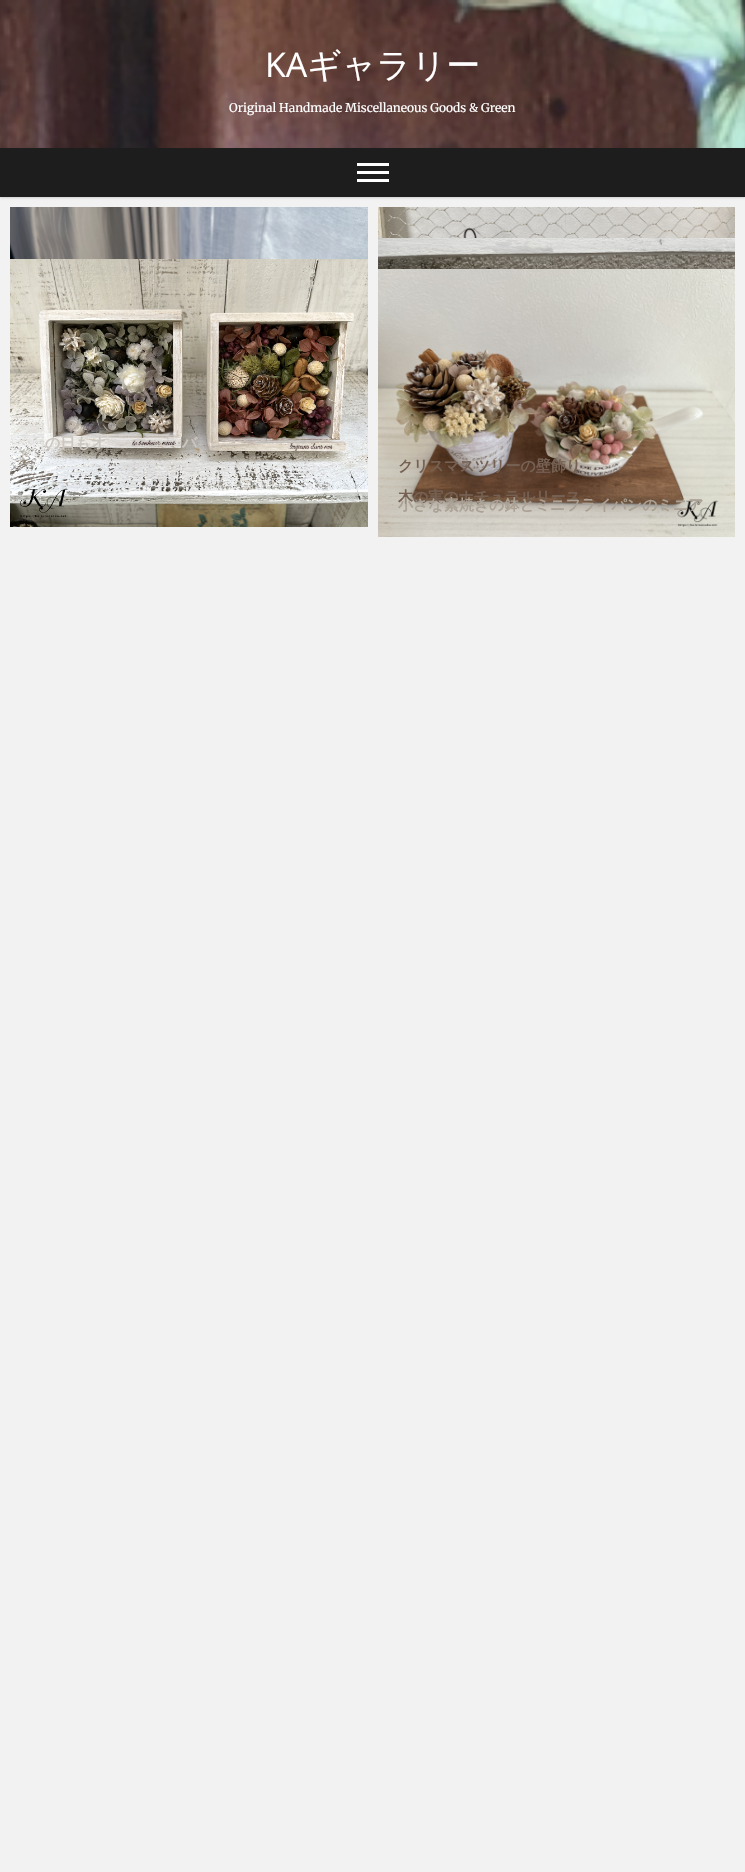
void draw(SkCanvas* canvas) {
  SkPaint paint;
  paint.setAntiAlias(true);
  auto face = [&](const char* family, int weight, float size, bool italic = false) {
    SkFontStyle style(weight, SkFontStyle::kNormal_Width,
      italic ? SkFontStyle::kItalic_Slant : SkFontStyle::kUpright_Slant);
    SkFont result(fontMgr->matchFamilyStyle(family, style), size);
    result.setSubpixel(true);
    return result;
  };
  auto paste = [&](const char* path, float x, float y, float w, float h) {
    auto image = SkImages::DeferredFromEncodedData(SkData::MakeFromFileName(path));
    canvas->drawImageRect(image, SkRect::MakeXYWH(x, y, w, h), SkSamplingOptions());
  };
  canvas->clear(0xffffffff);
  paste("img/1.png", 0, 0, 745, 148);
  paint.setColor(0xfff2f2f2);
  canvas->drawRect(SkRect::MakeXYWH(0, 197, 745, 1675), paint);
  paint.setColor(0x26000000);
  paint.setMaskFilter(SkMaskFilter::MakeBlur(kNormal_SkBlurStyle, 1));
  canvas->drawRect(SkRect::MakeXYWH(0, 149, 745, 49), paint);
  paint.setMaskFilter(nullptr);
  {
    const struct { float x, y, w, h; SkColor color; } items[] = {
      {0, 148, 745, 49, 0xff1d1d1d},
      {357, 163, 32, 3, 0xffffffff},
      {357, 171, 32, 3, 0xffffffff},
      {357, 179, 32, 3, 0xffffffff},
    };
    for (auto [x, y, w, h, color] : items) {
      paint.setColor(color);
      canvas->drawRect(SkRect::MakeXYWH(x, y, w, h), paint);
    }
  }
  paste("img/2.png", 10, 259, 358, 268);
  paste("img/3.png", 10, 207, 358, 52);
  paste("img/4.png", 378, 207, 357, 31);
  paste("img/5.png", 378, 238, 357, 31);
  paste("img/6.png", 378, 269, 357, 268);
  auto f0 = face("Open Sans", 400, 34);
  canvas->drawString("KA", 265, 77, f0, paint);
  auto f1 = face("WenQuanYi Zen Hei", 500, 34);
  canvas->drawString("ギャラリー", 307, 77, f1, paint);
  auto f2 = face("Merriweather", 300, 12);
  canvas->drawString("Original Handmade Miscellaneous Goods & Green", 229, 112, f2, paint);
  auto f3 = face("WenQuanYi Zen Hei", 700, 15);
  paint.setColor(0xffcbc6bf);
  canvas->drawString("の日もオ", 45, 448, f3, paint);
  canvas->drawString("バ", 182, 448, f3, paint);
  paint.setColor(0xff756153);
  canvas->drawString("クリスマスツリーの壁飾り", 398, 471, f3, paint);
  canvas->drawString("木の実のナチュラルリース", 398, 502, f3, paint);
  paint.setColor(0xffaaa094);
  canvas->drawString("小さな素焼きの鉢とミニフライパンのミニア", 398, 510, f3, paint);
}
